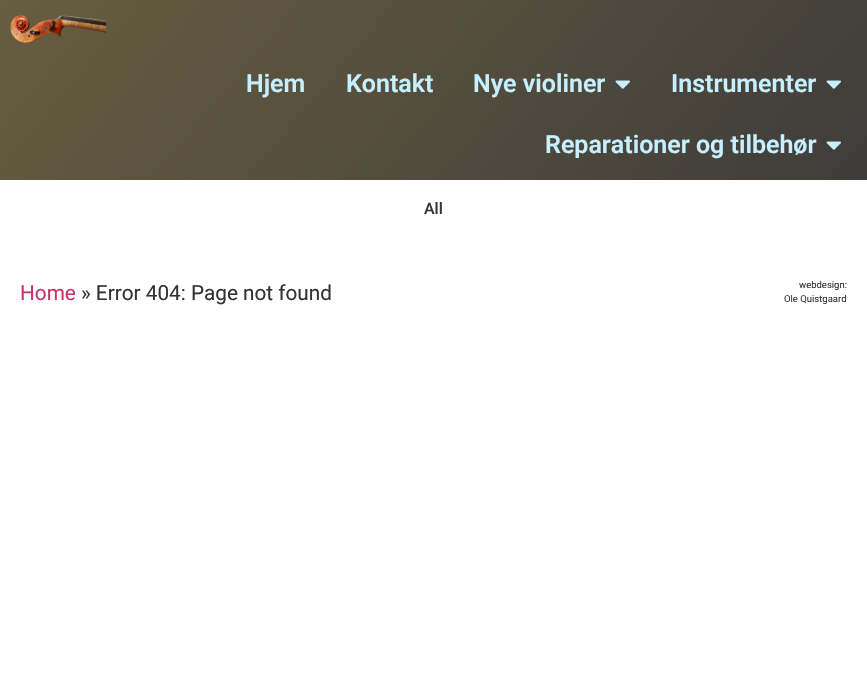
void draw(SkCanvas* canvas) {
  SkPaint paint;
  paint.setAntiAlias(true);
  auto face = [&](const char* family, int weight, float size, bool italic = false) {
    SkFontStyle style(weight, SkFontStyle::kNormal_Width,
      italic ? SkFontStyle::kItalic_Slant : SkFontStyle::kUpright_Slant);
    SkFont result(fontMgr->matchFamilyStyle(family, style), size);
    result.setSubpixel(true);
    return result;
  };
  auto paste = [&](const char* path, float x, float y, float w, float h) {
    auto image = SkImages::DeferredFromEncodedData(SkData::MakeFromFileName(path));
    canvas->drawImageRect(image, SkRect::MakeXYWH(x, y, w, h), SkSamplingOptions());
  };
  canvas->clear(0xffffffff);
  {
    const SkColor colors[] = {0xff3f3d3b, 0xff675d40};
    const float stops[] = {0, 1};
    const SkPoint ends[] = {{732, 341}, {135, -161}};
    paint.setShader(SkGradientShader::MakeLinear(ends, colors, stops, 2, SkTileMode::kClamp));
    paint.setAlpha(255);
  }
  canvas->drawRect(SkRect::MakeXYWH(0, 0, 867, 180), paint);
  paste("img/1.png", 10, 15, 96, 28);
  paste("img/2.png", 615, 80, 15, 9);
  paste("img/3.png", 826, 80, 15, 9);
  paste("img/4.png", 826, 141, 15, 9);
  auto f0 = face("Roboto", 600, 25);
  paint.setShader(nullptr);
  paint.setColor(0xffc6efff);
  {
    const struct { const char* s; float x, y; } items[] = {
      {"Hjem", 246, 92},
      {"Kontakt", 346, 92},
      {"Nye violiner", 473, 92},
      {"Instrumenter", 671, 92},
      {"Reparationer og tilbehør", 545, 153},
    };
    for (auto [s, x, y] : items) {
      canvas->drawString(s, x, y, f0, paint);
    }
  }
  auto f1 = face("Roboto", 500, 16);
  paint.setColor(0xff333333);
  canvas->drawString("All", 424, 214, f1, paint);
  auto f2 = face("Roboto", 400, 20.75f);
  paint.setColor(0xffcc3366);
  canvas->drawString("Home", 20, 300, f2, paint);
  paint.setColor(0xff333333);
  canvas->drawString("» Error 404: Page not found", 81, 300, f2, paint);
  auto f3 = face("Roboto", 400, 9.5f);
  canvas->drawString("webdesign:", 799, 288, f3, paint);
  canvas->drawString("Ole Quistgaard", 784, 302, f3, paint);
}
